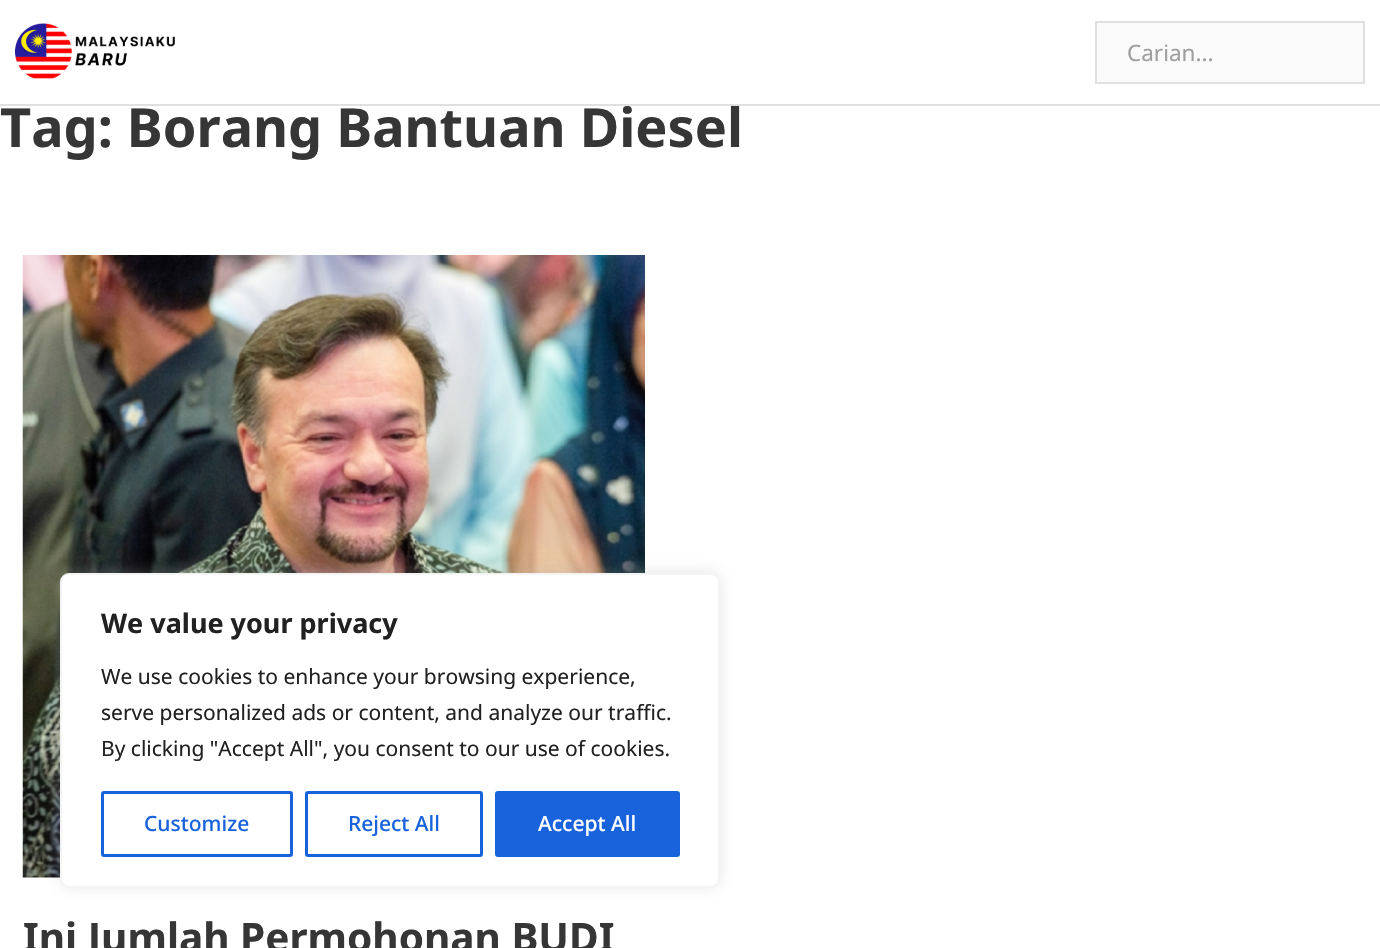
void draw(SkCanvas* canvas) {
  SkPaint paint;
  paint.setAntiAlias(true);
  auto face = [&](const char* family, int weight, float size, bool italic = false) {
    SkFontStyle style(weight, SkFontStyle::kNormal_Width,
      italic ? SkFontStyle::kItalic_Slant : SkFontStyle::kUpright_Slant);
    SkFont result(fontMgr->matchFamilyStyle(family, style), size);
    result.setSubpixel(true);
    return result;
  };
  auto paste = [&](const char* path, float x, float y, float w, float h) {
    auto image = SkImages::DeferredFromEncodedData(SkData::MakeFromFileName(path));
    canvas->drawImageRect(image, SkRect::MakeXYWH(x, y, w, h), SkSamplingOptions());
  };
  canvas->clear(0xffffffff);
  paste("img/1.png", 15, 23, 160, 56);
  paint.setColor(0xfffafafa);
  canvas->drawRect(SkRect::MakeXYWH(1096, 22, 268, 61), paint);
  paint.setStroke(true);
  paint.setStrokeWidth(2);
  paint.setColor(0xffe0e0e0);
  canvas->drawRect(SkRect::MakeXYWH(1096, 22, 268, 61), paint);
  paste("img/2.png", 22, 255, 623, 623);
  paint.setStroke(false);
  paint.setColor(0x4dacabab);
  paint.setMaskFilter(SkMaskFilter::MakeBlur(kNormal_SkBlurStyle, 7.5f));
  canvas->drawRoundRect(SkRect::MakeXYWH(60, 572, 660, 315), 9, 9, paint);
  paint.setMaskFilter(nullptr);
  paint.setColor(0xffffffff);
  canvas->drawRoundRect(SkRect::MakeXYWH(61, 574, 658, 313), 8, 8, paint);
  paint.setStroke(true);
  paint.setColor(0xfff4f4f4);
  canvas->drawRoundRect(SkRect::MakeXYWH(61, 574, 658, 313), 8, 8, paint);
  paint.setStrokeWidth(3);
  paint.setColor(0xff1863dc);
  canvas->drawRoundRect(SkRect::MakeXYWH(102.5f, 792.5f, 189, 63), 1.5f, 1.5f, paint);
  canvas->drawRoundRect(SkRect::MakeXYWH(306.5f, 792.5f, 175, 63), 1.5f, 1.5f, paint);
  paint.setStroke(false);
  canvas->drawRoundRect(SkRect::MakeXYWH(496.5f, 792.5f, 182, 63), 1.5f, 1.5f, paint);
  paint.setStroke(true);
  canvas->drawRoundRect(SkRect::MakeXYWH(496.5f, 792.5f, 182, 63), 1.5f, 1.5f, paint);
  auto f0 = face("Noto Sans", 400, 22.5f);
  paint.setStroke(false);
  paint.setColor(0xff9e9e9e);
  canvas->drawString("Carian...", 1127, 61, f0, paint);
  auto f1 = face("Noto Sans", 700, 54);
  paint.setColor(0xff363636);
  canvas->drawString("Tag: Borang Bantuan Diesel", 0, 147, f1, paint);
  paint.setColor(0xffe0e0e0);
  canvas->drawRect(SkRect::MakeXYWH(0, 104, 1380, 2), paint);
  auto f2 = face("Noto Sans", 700, 27);
  paint.setColor(0xff212121);
  canvas->drawString("We value your privacy", 101, 633, f2, paint);
  auto f3 = face("Noto Sans", 400, 21);
  {
    const struct { const char* s; float x, y; } items[] = {
      {"We use cookies to enhance your browsing experience,", 101, 684},
      {"serve personalized ads or content, and analyze our traffic.", 101, 720},
      {"By clicking \"Accept All\", you consent to our use of cookies.", 101, 756},
    };
    for (auto [s, x, y] : items) {
      canvas->drawString(s, x, y, f3, paint);
    }
  }
  auto f4 = face("Noto Sans", 500, 21);
  paint.setColor(0xff1863dc);
  canvas->drawString("Customize", 144, 831, f4, paint);
  canvas->drawString("Reject All", 348, 831, f4, paint);
  paint.setColor(0xffffffff);
  canvas->drawString("Accept All", 538, 831, f4, paint);
  auto f5 = face("Noto Sans", 700, 40.5f);
  paint.setColor(0xff363636);
  canvas->drawString("Ini Jumlah Permohonan BUDI", 23, 952, f5, paint);
}
